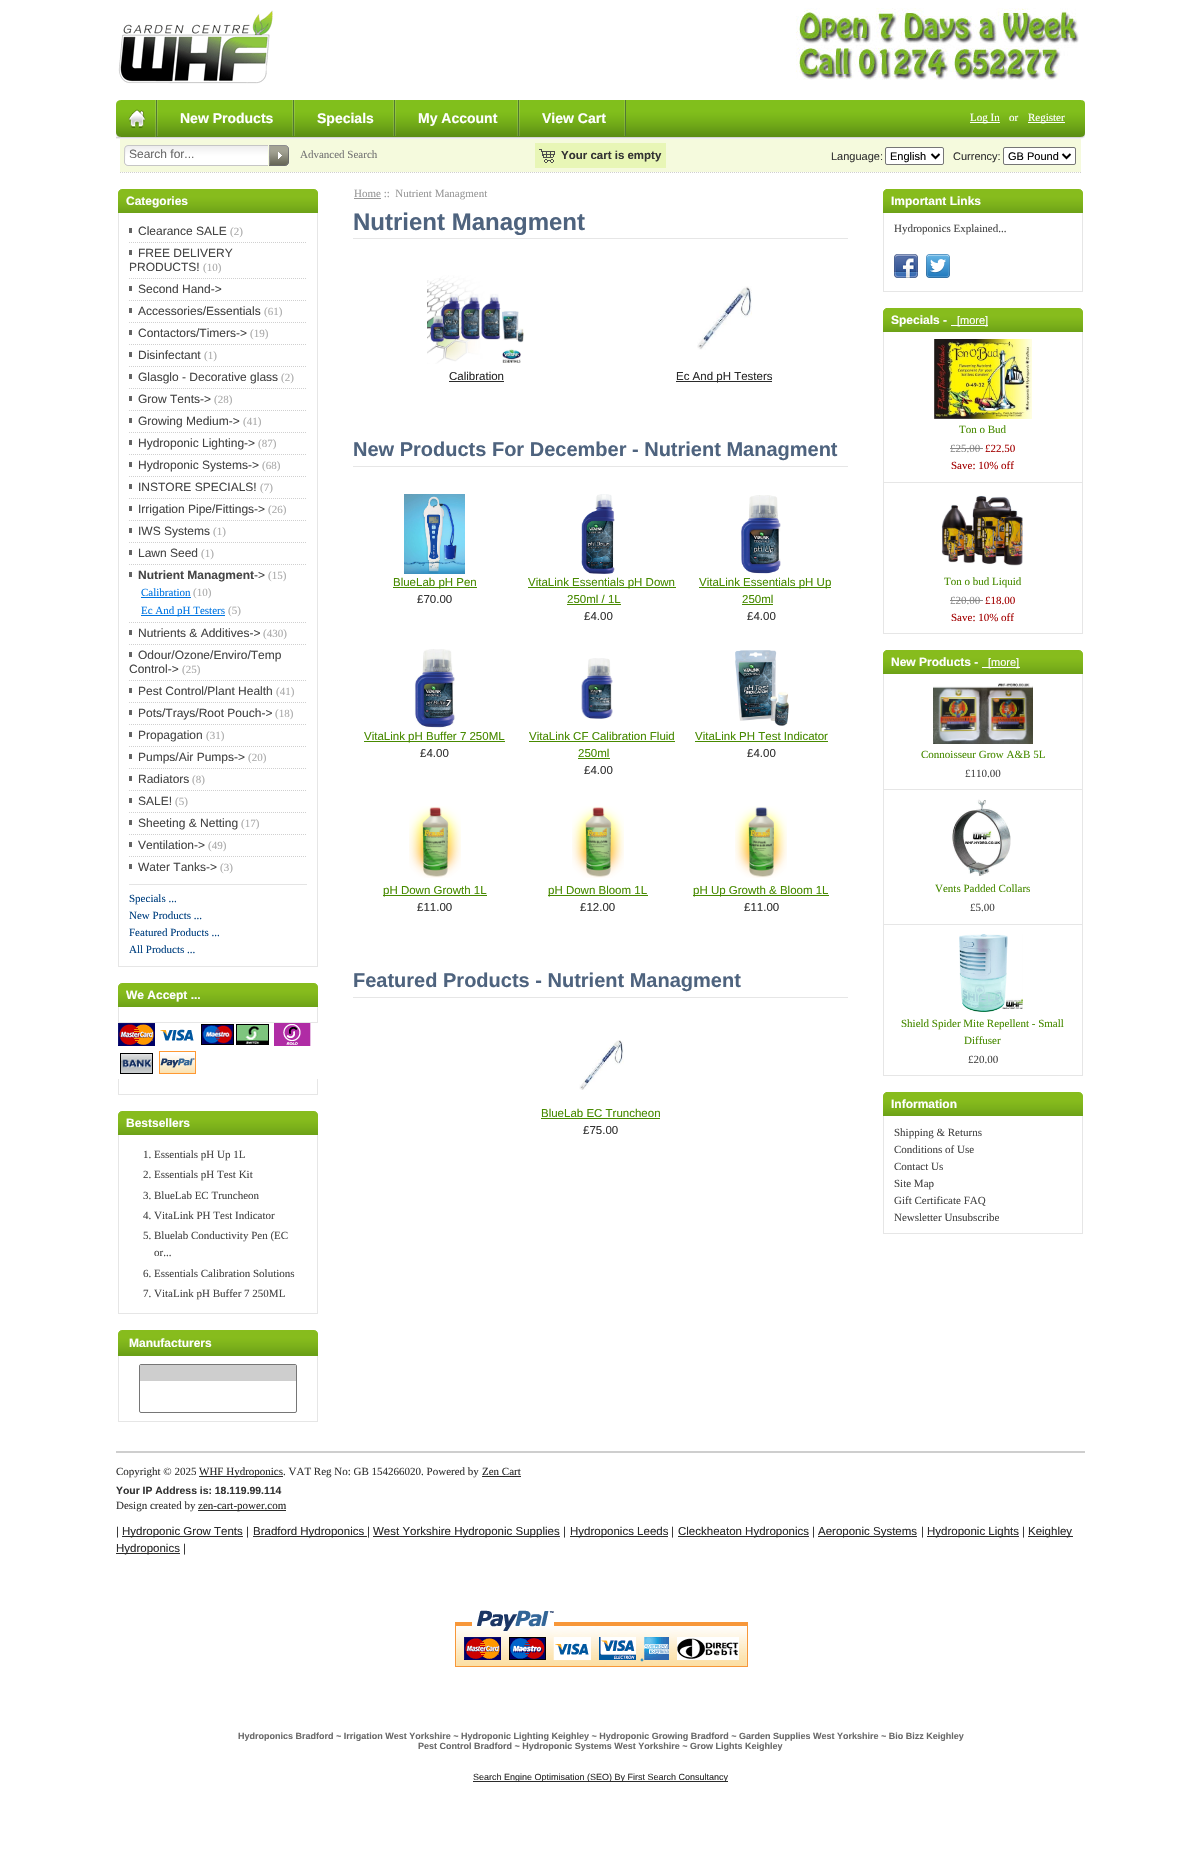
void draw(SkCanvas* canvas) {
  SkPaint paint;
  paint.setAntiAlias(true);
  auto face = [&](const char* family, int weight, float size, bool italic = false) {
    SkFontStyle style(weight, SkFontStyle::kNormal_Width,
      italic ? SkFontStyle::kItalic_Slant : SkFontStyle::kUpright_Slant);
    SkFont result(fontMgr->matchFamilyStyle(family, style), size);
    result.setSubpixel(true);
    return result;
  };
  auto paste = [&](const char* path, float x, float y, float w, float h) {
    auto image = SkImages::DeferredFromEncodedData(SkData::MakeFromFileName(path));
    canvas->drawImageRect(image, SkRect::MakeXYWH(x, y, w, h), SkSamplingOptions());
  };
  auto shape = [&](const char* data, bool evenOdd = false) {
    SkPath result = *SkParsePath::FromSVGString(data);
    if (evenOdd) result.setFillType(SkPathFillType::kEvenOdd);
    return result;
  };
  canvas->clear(0xffffffff);
  paste("img/1.png", 796, 8, 283, 72);
  paste("img/2.png", 118, 10, 155, 74);
  paste("img/3.png", 116, 100, 964, 39);
  paint.setColor(0xff527833);
  canvas->drawRect(SkRect::MakeXYWH(156, 100, 1, 37), paint);
  paste("img/4.png", 116, 100, 40, 37);
  paste("img/5.png", 157, 100, 1, 36);
  canvas->drawRect(SkRect::MakeXYWH(293, 100, 1, 36), paint);
  paste("img/6.png", 292, 100, 1, 36);
  paste("img/5.png", 294, 100, 1, 36);
  canvas->drawRect(SkRect::MakeXYWH(394, 100, 1, 36), paint);
  paste("img/5.png", 393, 100, 1, 36);
  paste("img/5.png", 395, 100, 1, 36);
  canvas->drawRect(SkRect::MakeXYWH(518, 100, 1, 36), paint);
  paste("img/5.png", 517, 100, 1, 36);
  paste("img/5.png", 519, 100, 1, 36);
  canvas->drawRect(SkRect::MakeXYWH(625, 100, 1, 36), paint);
  paste("img/6.png", 624, 100, 1, 36);
  paste("img/7.png", 1080, 100, 5, 39);
  {
    const struct { float x, y, w, h; SkColor color; } items[] = {
      {970, 122, 30, 1, 0xffffffff},
      {1028, 122, 37, 1, 0xffffffff},
      {120, 139, 961, 33, 0xfff5fadd},
    };
    for (auto [x, y, w, h, color] : items) {
      paint.setColor(color);
      canvas->drawRect(SkRect::MakeXYWH(x, y, w, h), paint);
    }
  }
  paste("img/8.png", 124, 145, 144, 21);
  paste("img/9.png", 269, 145, 20, 21);
  paint.setColor(0xffe8f6b6);
  canvas->drawRect(SkRect::MakeXYWH(535, 143, 131, 25), paint);
  paste("img/10.png", 539, 149, 16, 14);
  paint.setColor(0xffffffff);
  canvas->drawRoundRect(SkRect::MakeXYWH(885.5f, 147.5f, 58, 17), 1.5f, 1.5f, paint);
  paint.setStroke(true);
  paint.setStrokeWidth(1);
  paint.setColor(0xff767676);
  canvas->drawRoundRect(SkRect::MakeXYWH(885.5f, 147.5f, 58, 17), 1.5f, 1.5f, paint);
  paint.setStrokeWidth(2);
  paint.setColor(0xff000000);
  canvas->drawPath(shape("M931.5 154L935.5 158L939.5 154"), paint);
  paint.setStroke(false);
  paint.setColor(0xffffffff);
  canvas->drawRoundRect(SkRect::MakeXYWH(1003.5f, 147.5f, 72, 17), 1.5f, 1.5f, paint);
  paint.setStroke(true);
  paint.setStrokeWidth(1);
  paint.setColor(0xff767676);
  canvas->drawRoundRect(SkRect::MakeXYWH(1003.5f, 147.5f, 72, 17), 1.5f, 1.5f, paint);
  paint.setStrokeWidth(2);
  paint.setColor(0xff000000);
  canvas->drawPath(shape("M1062.5 154L1066.5 158L1070.5 154"), paint);
  paste("img/11.png", 120, 172, 961, 1);
  paste("img/12.png", 118, 189, 47, 24);
  paste("img/13.png", 165, 189, 153, 24);
  paint.setStroke(false);
  {
    const struct { float x, y, w, h; SkColor color; } items[] = {
      {317, 213, 1, 754, 0xffe6e6e6},
      {118, 966, 200, 1, 0xffe6e6e6},
      {118, 213, 1, 754, 0xffe6e6e6},
      {129, 228, 3, 5, 0xff646464},
    };
    for (auto [x, y, w, h, color] : items) {
      paint.setColor(color);
      canvas->drawRect(SkRect::MakeXYWH(x, y, w, h), paint);
    }
  }
  paste("img/14.png", 129, 242, 177, 1);
  canvas->drawRect(SkRect::MakeXYWH(129, 250, 3, 5), paint);
  paste("img/14.png", 129, 278, 177, 1);
  canvas->drawRect(SkRect::MakeXYWH(129, 286, 3, 5), paint);
  paste("img/14.png", 129, 300, 177, 1);
  canvas->drawRect(SkRect::MakeXYWH(129, 308, 3, 5), paint);
  paste("img/14.png", 129, 322, 177, 1);
  canvas->drawRect(SkRect::MakeXYWH(129, 330, 3, 5), paint);
  paste("img/14.png", 129, 344, 177, 1);
  canvas->drawRect(SkRect::MakeXYWH(129, 352, 3, 5), paint);
  paste("img/14.png", 129, 366, 177, 1);
  canvas->drawRect(SkRect::MakeXYWH(129, 374, 3, 5), paint);
  paste("img/14.png", 129, 388, 177, 1);
  canvas->drawRect(SkRect::MakeXYWH(129, 396, 3, 5), paint);
  paste("img/14.png", 129, 410, 177, 1);
  canvas->drawRect(SkRect::MakeXYWH(129, 418, 3, 5), paint);
  paste("img/14.png", 129, 432, 177, 1);
  canvas->drawRect(SkRect::MakeXYWH(129, 440, 3, 5), paint);
  paste("img/14.png", 129, 454, 177, 1);
  canvas->drawRect(SkRect::MakeXYWH(129, 462, 3, 5), paint);
  paste("img/14.png", 129, 476, 177, 1);
  canvas->drawRect(SkRect::MakeXYWH(129, 484, 3, 5), paint);
  paste("img/14.png", 129, 498, 177, 1);
  canvas->drawRect(SkRect::MakeXYWH(129, 506, 3, 5), paint);
  paste("img/14.png", 129, 520, 177, 1);
  canvas->drawRect(SkRect::MakeXYWH(129, 528, 3, 5), paint);
  paste("img/14.png", 129, 542, 177, 1);
  canvas->drawRect(SkRect::MakeXYWH(129, 550, 3, 5), paint);
  paste("img/14.png", 129, 564, 177, 1);
  {
    const struct { float x, y, w, h; SkColor color; } items[] = {
      {129, 572, 3, 5, 0xff646464},
      {141, 597, 50, 1, 0xff0075e2},
      {141, 615, 84, 1, 0xff0075e2},
    };
    for (auto [x, y, w, h, color] : items) {
      paint.setColor(color);
      canvas->drawRect(SkRect::MakeXYWH(x, y, w, h), paint);
    }
  }
  paste("img/14.png", 129, 622, 177, 1);
  paint.setColor(0xff646464);
  canvas->drawRect(SkRect::MakeXYWH(129, 630, 3, 5), paint);
  paste("img/14.png", 129, 644, 177, 1);
  canvas->drawRect(SkRect::MakeXYWH(129, 652, 3, 5), paint);
  paste("img/14.png", 129, 680, 177, 1);
  canvas->drawRect(SkRect::MakeXYWH(129, 688, 3, 5), paint);
  paste("img/14.png", 129, 702, 177, 1);
  canvas->drawRect(SkRect::MakeXYWH(129, 710, 3, 5), paint);
  paste("img/14.png", 129, 724, 177, 1);
  canvas->drawRect(SkRect::MakeXYWH(129, 732, 3, 5), paint);
  paste("img/14.png", 129, 746, 177, 1);
  canvas->drawRect(SkRect::MakeXYWH(129, 754, 3, 5), paint);
  paste("img/14.png", 129, 768, 177, 1);
  canvas->drawRect(SkRect::MakeXYWH(129, 776, 3, 5), paint);
  paste("img/14.png", 129, 790, 177, 1);
  canvas->drawRect(SkRect::MakeXYWH(129, 798, 3, 5), paint);
  paste("img/14.png", 129, 812, 177, 1);
  canvas->drawRect(SkRect::MakeXYWH(129, 820, 3, 5), paint);
  paste("img/14.png", 129, 834, 177, 1);
  canvas->drawRect(SkRect::MakeXYWH(129, 842, 3, 5), paint);
  paste("img/14.png", 129, 856, 177, 1);
  canvas->drawRect(SkRect::MakeXYWH(129, 864, 3, 5), paint);
  paint.setColor(0xffe4e4e4);
  canvas->drawRect(SkRect::MakeXYWH(129, 884, 178, 1), paint);
  paste("img/12.png", 118, 983, 47, 24);
  paste("img/13.png", 165, 983, 153, 24);
  {
    const struct { float x, y, w, h; SkColor color; } items[] = {
      {317, 1007, 1, 16, 0xffe6e6e6},
      {118, 1022, 200, 1, 0xffe6e6e6},
      {118, 1007, 1, 16, 0xffe6e6e6},
    };
    for (auto [x, y, w, h, color] : items) {
      paint.setColor(color);
      canvas->drawRect(SkRect::MakeXYWH(x, y, w, h), paint);
    }
  }
  paste("img/15.png", 118, 1023, 37, 23);
  paste("img/16.png", 160, 1029, 34, 12);
  paste("img/17.png", 201, 1024, 68, 21);
  paste("img/18.png", 274, 1023, 37, 23);
  paste("img/19.png", 120, 1053, 33, 21);
  paste("img/20.png", 159, 1051, 37, 23);
  {
    const struct { float x, y, w, h; SkColor color; } items[] = {
      {317, 1079, 1, 16, 0xffe6e6e6},
      {118, 1094, 200, 1, 0xffe6e6e6},
      {118, 1079, 1, 16, 0xffe6e6e6},
    };
    for (auto [x, y, w, h, color] : items) {
      paint.setColor(color);
      canvas->drawRect(SkRect::MakeXYWH(x, y, w, h), paint);
    }
  }
  paste("img/12.png", 118, 1111, 47, 24);
  paste("img/13.png", 165, 1111, 153, 24);
  {
    const struct { float x, y, w, h; SkColor color; } items[] = {
      {317, 1135, 1, 179, 0xffe6e6e6},
      {118, 1313, 200, 1, 0xffe6e6e6},
      {118, 1135, 1, 179, 0xffe6e6e6},
    };
    for (auto [x, y, w, h, color] : items) {
      paint.setColor(color);
      canvas->drawRect(SkRect::MakeXYWH(x, y, w, h), paint);
    }
  }
  paste("img/21.png", 118, 1330, 47, 26);
  paste("img/22.png", 165, 1330, 153, 26);
  {
    const struct { float x, y, w, h; SkColor color; } items[] = {
      {317, 1356, 1, 66, 0xffe6e6e6},
      {118, 1421, 200, 1, 0xffe6e6e6},
      {118, 1356, 1, 66, 0xffe6e6e6},
    };
    for (auto [x, y, w, h, color] : items) {
      paint.setColor(color);
      canvas->drawRect(SkRect::MakeXYWH(x, y, w, h), paint);
    }
  }
  paint.setStroke(true);
  paint.setStrokeWidth(1);
  paint.setColor(0xff767676);
  canvas->drawRoundRect(SkRect::MakeXYWH(139.5f, 1364.5f, 157, 48), 1.5f, 1.5f, paint);
  paint.setStroke(false);
  paint.setColor(0xffcecece);
  canvas->drawPath(shape("M141 1365H295C295.5 1365 296 1365.5 296 1366V1381H140V1366C140 1365.5 140.5 1365 141 1365Z"), paint);
  paint.setColor(0xff999999);
  canvas->drawRect(SkRect::MakeXYWH(354, 198, 27, 1), paint);
  paint.setColor(0xffe6e6e6);
  canvas->drawRect(SkRect::MakeXYWH(353, 238, 495, 1), paint);
  paste("img/23.png", 427, 275, 97, 89);
  paint.setColor(0xff2b2b2b);
  canvas->drawRect(SkRect::MakeXYWH(449, 381, 55, 1), paint);
  paste("img/24.png", 697, 286, 55, 64);
  canvas->drawRect(SkRect::MakeXYWH(676, 381, 96, 1), paint);
  paint.setColor(0xffe6e6e6);
  canvas->drawRect(SkRect::MakeXYWH(353, 466, 495, 1), paint);
  paste("img/25.png", 404, 494, 61, 80);
  paint.setColor(0xff478a00);
  canvas->drawRect(SkRect::MakeXYWH(393, 587, 84, 1), paint);
  paste("img/26.png", 581, 494, 34, 80);
  canvas->drawRect(SkRect::MakeXYWH(528, 587, 148, 1), paint);
  canvas->drawRect(SkRect::MakeXYWH(567, 604, 54, 1), paint);
  paste("img/27.png", 741, 495, 40, 79);
  canvas->drawRect(SkRect::MakeXYWH(699, 587, 132, 1), paint);
  canvas->drawRect(SkRect::MakeXYWH(742, 604, 31, 1), paint);
  paste("img/28.png", 414, 649, 42, 79);
  canvas->drawRect(SkRect::MakeXYWH(364, 741, 141, 1), paint);
  paste("img/29.png", 581, 658, 32, 61);
  canvas->drawRect(SkRect::MakeXYWH(529, 741, 146, 1), paint);
  canvas->drawRect(SkRect::MakeXYWH(578, 758, 32, 1), paint);
  paste("img/30.png", 735, 650, 54, 76);
  canvas->drawRect(SkRect::MakeXYWH(695, 741, 133, 1), paint);
  paste("img/31.png", 409, 806, 52, 72);
  canvas->drawRect(SkRect::MakeXYWH(383, 895, 104, 1), paint);
  paste("img/32.png", 572, 806, 52, 72);
  canvas->drawRect(SkRect::MakeXYWH(548, 895, 100, 1), paint);
  paste("img/33.png", 735, 806, 52, 72);
  canvas->drawRect(SkRect::MakeXYWH(693, 895, 136, 1), paint);
  paint.setColor(0xffe6e6e6);
  canvas->drawRect(SkRect::MakeXYWH(353, 997, 495, 1), paint);
  paste("img/34.png", 579, 1040, 45, 50);
  paint.setColor(0xff478a00);
  canvas->drawRect(SkRect::MakeXYWH(541, 1118, 119, 1), paint);
  paste("img/35.png", 883, 189, 3, 24);
  paste("img/36.png", 886, 189, 197, 24);
  {
    const struct { float x, y, w, h; SkColor color; } items[] = {
      {1082, 213, 1, 79, 0xffe6e6e6},
      {883, 291, 200, 1, 0xffe6e6e6},
      {883, 213, 1, 79, 0xffe6e6e6},
    };
    for (auto [x, y, w, h, color] : items) {
      paint.setColor(color);
      canvas->drawRect(SkRect::MakeXYWH(x, y, w, h), paint);
    }
  }
  paste("img/37.png", 894, 254, 24, 24);
  paste("img/38.png", 926, 254, 24, 24);
  paste("img/35.png", 883, 308, 3, 24);
  paste("img/36.png", 886, 308, 197, 24);
  {
    const struct { float x, y, w, h; SkColor color; } items[] = {
      {951, 325, 37, 1, 0xffffffff},
      {1082, 332, 1, 302, 0xffe6e6e6},
      {883, 482, 200, 1, 0xffe6e6e6},
      {883, 332, 1, 151, 0xffe6e6e6},
    };
    for (auto [x, y, w, h, color] : items) {
      paint.setColor(color);
      canvas->drawRect(SkRect::MakeXYWH(x, y, w, h), paint);
    }
  }
  paste("img/39.png", 934, 339, 98, 80);
  {
    const struct { float x, y, w, h; SkColor color; } items[] = {
      {950, 448, 33, 1, 0xff888888},
      {883, 633, 200, 1, 0xffe6e6e6},
      {883, 483, 1, 151, 0xffe6e6e6},
    };
    for (auto [x, y, w, h, color] : items) {
      paint.setColor(color);
      canvas->drawRect(SkRect::MakeXYWH(x, y, w, h), paint);
    }
  }
  paste("img/40.png", 941, 495, 82, 71);
  paint.setColor(0xff888888);
  canvas->drawRect(SkRect::MakeXYWH(950, 600, 33, 1), paint);
  paste("img/35.png", 883, 650, 3, 24);
  paste("img/36.png", 886, 650, 197, 24);
  {
    const struct { float x, y, w, h; SkColor color; } items[] = {
      {982, 667, 38, 1, 0xffffffff},
      {1082, 674, 1, 402, 0xffe6e6e6},
      {883, 789, 200, 1, 0xffe6e6e6},
      {883, 674, 1, 116, 0xffe6e6e6},
    };
    for (auto [x, y, w, h, color] : items) {
      paint.setColor(color);
      canvas->drawRect(SkRect::MakeXYWH(x, y, w, h), paint);
    }
  }
  paste("img/41.png", 933, 683, 100, 61);
  canvas->drawRect(SkRect::MakeXYWH(883, 924, 200, 1), paint);
  canvas->drawRect(SkRect::MakeXYWH(883, 790, 1, 135), paint);
  paste("img/42.png", 952, 799, 59, 77);
  canvas->drawRect(SkRect::MakeXYWH(883, 1075, 200, 1), paint);
  canvas->drawRect(SkRect::MakeXYWH(883, 925, 1, 151), paint);
  paste("img/43.png", 959, 934, 64, 78);
  paste("img/35.png", 883, 1092, 3, 24);
  paste("img/36.png", 886, 1092, 197, 24);
  {
    const struct { float x, y, w, h; SkColor color; } items[] = {
      {1082, 1116, 1, 118, 0xffe6e6e6},
      {883, 1233, 200, 1, 0xffe6e6e6},
      {883, 1116, 1, 118, 0xffe6e6e6},
      {116, 1451, 969, 2, 0xffcecece},
      {199, 1476, 84, 1, 0xff2b2b2b},
      {482, 1476, 39, 1, 0xff2b2b2b},
      {198, 1510, 88, 1, 0xff2b2b2b},
      {122, 1536, 121, 1, 0xff2b2b2b},
      {253, 1536, 114, 1, 0xff2b2b2b},
      {373, 1536, 187, 1, 0xff2b2b2b},
      {570, 1536, 98, 1, 0xff2b2b2b},
      {678, 1536, 131, 1, 0xff2b2b2b},
      {818, 1536, 99, 1, 0xff2b2b2b},
      {927, 1536, 92, 1, 0xff2b2b2b},
      {1028, 1536, 45, 1, 0xff2b2b2b},
      {116, 1553, 64, 1, 0xff2b2b2b},
    };
    for (auto [x, y, w, h, color] : items) {
      paint.setColor(color);
      canvas->drawRect(SkRect::MakeXYWH(x, y, w, h), paint);
    }
  }
  paste("img/44.png", 455, 1610, 293, 57);
  canvas->drawRect(SkRect::MakeXYWH(473, 1781, 255, 1), paint);
  auto f0 = face("Liberation Sans", 700, 14);
  paint.setColor(0xffffffff);
  {
    const struct { const char* s; float x, y; } items[] = {
      {"New Products", 180, 123},
      {"Specials", 317, 123},
      {"My Account", 418, 123},
      {"View Cart", 542, 123},
    };
    for (auto [s, x, y] : items) {
      canvas->drawString(s, x, y, f0, paint);
    }
  }
  auto f1 = face("Liberation Serif", 400, 11);
  {
    const struct { const char* s; float x, y; } items[] = {
      {"Log In", 970, 121},
      {"or", 1009, 121},
      {"Register", 1028, 121},
    };
    for (auto [s, x, y] : items) {
      canvas->drawString(s, x, y, f1, paint);
    }
  }
  auto f2 = face("Liberation Sans", 400, 12);
  paint.setColor(0xff696969);
  canvas->drawString("Search for...", 129, 158, f2, paint);
  paint.setColor(0xff757575);
  canvas->drawString("Advanced Search", 300, 158, f1, paint);
  auto f3 = face("Liberation Sans", 700, 11.5f);
  paint.setColor(0xff333333);
  canvas->drawString("Your cart is empty", 561, 159, f3, paint);
  auto f4 = face("Liberation Sans", 400, 11);
  canvas->drawString("Language:", 831, 160, f4, paint);
  paint.setColor(0xff000000);
  canvas->drawString("English", 890, 160, f4, paint);
  paint.setColor(0xff333333);
  canvas->drawString("Currency:", 953, 160, f4, paint);
  paint.setColor(0xff000000);
  canvas->drawString("GB Pound", 1008, 160, f4, paint);
  auto f5 = face("Liberation Sans", 700, 12);
  paint.setColor(0xffffffff);
  canvas->drawString("Categories", 126, 205, f5, paint);
  paint.setColor(0xff454545);
  canvas->drawString("Clearance SALE", 138, 235, f2, paint);
  paint.setColor(0xffaaaaaa);
  canvas->drawString("(2)", 230, 235, f1, paint);
  paint.setColor(0xff454545);
  canvas->drawString("FREE DELIVERY", 138, 257, f2, paint);
  canvas->drawString("PRODUCTS!", 129, 271, f2, paint);
  paint.setColor(0xffaaaaaa);
  canvas->drawString("(10)", 203, 271, f1, paint);
  paint.setColor(0xff454545);
  canvas->drawString("Second Hand->", 138, 293, f2, paint);
  canvas->drawString("Accessories/Essentials", 138, 315, f2, paint);
  paint.setColor(0xffaaaaaa);
  canvas->drawString("(61)", 264, 315, f1, paint);
  paint.setColor(0xff454545);
  canvas->drawString("Contactors/Timers->", 138, 337, f2, paint);
  paint.setColor(0xffaaaaaa);
  canvas->drawString("(19)", 250, 337, f1, paint);
  paint.setColor(0xff454545);
  canvas->drawString("Disinfectant", 138, 359, f2, paint);
  paint.setColor(0xffaaaaaa);
  canvas->drawString("(1)", 204, 359, f1, paint);
  paint.setColor(0xff454545);
  canvas->drawString("Glasglo - Decorative glass", 138, 381, f2, paint);
  paint.setColor(0xffaaaaaa);
  canvas->drawString("(2)", 281, 381, f1, paint);
  paint.setColor(0xff454545);
  canvas->drawString("Grow Tents->", 138, 403, f2, paint);
  paint.setColor(0xffaaaaaa);
  canvas->drawString("(28)", 214, 403, f1, paint);
  paint.setColor(0xff454545);
  canvas->drawString("Growing Medium->", 138, 425, f2, paint);
  paint.setColor(0xffaaaaaa);
  canvas->drawString("(41)", 243, 425, f1, paint);
  paint.setColor(0xff454545);
  canvas->drawString("Hydroponic Lighting->", 138, 447, f2, paint);
  paint.setColor(0xffaaaaaa);
  canvas->drawString("(87)", 258, 447, f1, paint);
  paint.setColor(0xff454545);
  canvas->drawString("Hydroponic Systems->", 138, 469, f2, paint);
  paint.setColor(0xffaaaaaa);
  canvas->drawString("(68)", 262, 469, f1, paint);
  paint.setColor(0xff454545);
  canvas->drawString("INSTORE SPECIALS!", 138, 491, f2, paint);
  paint.setColor(0xffaaaaaa);
  canvas->drawString("(7)", 260, 491, f1, paint);
  paint.setColor(0xff454545);
  canvas->drawString("Irrigation Pipe/Fittings->", 138, 513, f2, paint);
  paint.setColor(0xffaaaaaa);
  canvas->drawString("(26)", 268, 513, f1, paint);
  paint.setColor(0xff454545);
  canvas->drawString("IWS Systems", 138, 535, f2, paint);
  paint.setColor(0xffaaaaaa);
  canvas->drawString("(1)", 213, 535, f1, paint);
  paint.setColor(0xff454545);
  canvas->drawString("Lawn Seed", 138, 557, f2, paint);
  paint.setColor(0xffaaaaaa);
  canvas->drawString("(1)", 201, 557, f1, paint);
  paint.setColor(0xff454545);
  canvas->drawString("Nutrient Managment", 138, 579, f5, paint);
  canvas->drawString("->", 254, 579, f2, paint);
  paint.setColor(0xffaaaaaa);
  canvas->drawString("(15)", 268, 579, f1, paint);
  paint.setColor(0xff0075e2);
  canvas->drawString("Calibration", 141, 596, f1, paint);
  paint.setColor(0xffaaaaaa);
  canvas->drawString("(10)", 193, 596, f1, paint);
  paint.setColor(0xff0075e2);
  canvas->drawString("Ec And pH Testers", 141, 614, f1, paint);
  paint.setColor(0xffaaaaaa);
  canvas->drawString("(5)", 228, 614, f1, paint);
  paint.setColor(0xff454545);
  canvas->drawString("Nutrients & Additives->", 138, 637, f2, paint);
  paint.setColor(0xffaaaaaa);
  canvas->drawString("(430)", 263, 637, f1, paint);
  paint.setColor(0xff454545);
  canvas->drawString("Odour/Ozone/Enviro/Temp", 138, 659, f2, paint);
  canvas->drawString("Control->", 129, 673, f2, paint);
  paint.setColor(0xffaaaaaa);
  canvas->drawString("(25)", 182, 673, f1, paint);
  paint.setColor(0xff454545);
  canvas->drawString("Pest Control/Plant Health", 138, 695, f2, paint);
  paint.setColor(0xffaaaaaa);
  canvas->drawString("(41)", 276, 695, f1, paint);
  paint.setColor(0xff454545);
  canvas->drawString("Pots/Trays/Root Pouch->", 138, 717, f2, paint);
  paint.setColor(0xffaaaaaa);
  canvas->drawString("(18)", 275, 717, f1, paint);
  paint.setColor(0xff454545);
  canvas->drawString("Propagation", 138, 739, f2, paint);
  paint.setColor(0xffaaaaaa);
  canvas->drawString("(31)", 206, 739, f1, paint);
  paint.setColor(0xff454545);
  canvas->drawString("Pumps/Air Pumps->", 138, 761, f2, paint);
  paint.setColor(0xffaaaaaa);
  canvas->drawString("(20)", 248, 761, f1, paint);
  paint.setColor(0xff454545);
  canvas->drawString("Radiators", 138, 783, f2, paint);
  paint.setColor(0xffaaaaaa);
  canvas->drawString("(8)", 192, 783, f1, paint);
  paint.setColor(0xff454545);
  canvas->drawString("SALE!", 138, 805, f2, paint);
  paint.setColor(0xffaaaaaa);
  canvas->drawString("(5)", 175, 805, f1, paint);
  paint.setColor(0xff454545);
  canvas->drawString("Sheeting & Netting", 138, 827, f2, paint);
  paint.setColor(0xffaaaaaa);
  canvas->drawString("(17)", 241, 827, f1, paint);
  paint.setColor(0xff454545);
  canvas->drawString("Ventilation->", 138, 849, f2, paint);
  paint.setColor(0xffaaaaaa);
  canvas->drawString("(49)", 208, 849, f1, paint);
  paint.setColor(0xff454545);
  canvas->drawString("Water Tanks->", 138, 871, f2, paint);
  paint.setColor(0xffaaaaaa);
  canvas->drawString("(3)", 220, 871, f1, paint);
  paint.setColor(0xff004080);
  {
    const struct { const char* s; float x, y; } items[] = {
      {"Specials ...", 129, 902},
      {"New Products ...", 129, 919},
      {"Featured Products ...", 129, 936},
      {"All Products ...", 129, 953},
    };
    for (auto [s, x, y] : items) {
      canvas->drawString(s, x, y, f1, paint);
    }
  }
  paint.setColor(0xffffffff);
  canvas->drawString("We Accept ...", 126, 999, f5, paint);
  canvas->drawString("Bestsellers", 126, 1127, f5, paint);
  paint.setColor(0xff454545);
  {
    const struct { const char* s; float x, y; } items[] = {
      {"1. Essentials pH Up 1L", 143, 1158},
      {"2. Essentials pH Test Kit", 143, 1178},
      {"3. BlueLab EC Truncheon", 143, 1199},
      {"4. VitaLink PH Test Indicator", 143, 1219},
      {"5. Bluelab Conductivity Pen (EC", 143, 1239},
      {"or...", 154, 1256},
      {"6. Essentials Calibration Solutions", 143, 1277},
      {"7. VitaLink pH Buffer 7 250ML", 143, 1297},
    };
    for (auto [s, x, y] : items) {
      canvas->drawString(s, x, y, f1, paint);
    }
  }
  paint.setColor(0xffffffff);
  canvas->drawString("Manufacturers", 129, 1347, f5, paint);
  paint.setColor(0xff999999);
  canvas->drawString("Home ::  Nutrient Managment", 354, 197, f1, paint);
  auto f6 = face("Liberation Sans", 700, 24);
  paint.setColor(0xff4e637e);
  canvas->drawString("Nutrient Managment", 353, 230, f6, paint);
  auto f7 = face("Liberation Sans", 400, 11.5f);
  paint.setColor(0xff2b2b2b);
  canvas->drawString("Calibration", 449, 380, f7, paint);
  canvas->drawString("Ec And pH Testers", 676, 380, f7, paint);
  auto f8 = face("Liberation Sans", 700, 20);
  paint.setColor(0xff4e637e);
  canvas->drawString("New Products For December - Nutrient Managment", 353, 456, f8, paint);
  paint.setColor(0xff478a00);
  canvas->drawString("BlueLab pH Pen", 393, 586, f7, paint);
  paint.setColor(0xff333333);
  canvas->drawString("£70.00", 417, 603, f7, paint);
  paint.setColor(0xff478a00);
  canvas->drawString("VitaLink Essentials pH Down", 528, 586, f7, paint);
  canvas->drawString("250ml / 1L", 567, 603, f7, paint);
  paint.setColor(0xff333333);
  canvas->drawString("£4.00", 584, 620, f7, paint);
  paint.setColor(0xff478a00);
  canvas->drawString("VitaLink Essentials pH Up", 699, 586, f7, paint);
  canvas->drawString("250ml", 742, 603, f7, paint);
  paint.setColor(0xff333333);
  canvas->drawString("£4.00", 747, 620, f7, paint);
  paint.setColor(0xff478a00);
  canvas->drawString("VitaLink pH Buffer 7 250ML", 364, 740, f7, paint);
  paint.setColor(0xff333333);
  canvas->drawString("£4.00", 420, 757, f7, paint);
  paint.setColor(0xff478a00);
  canvas->drawString("VitaLink CF Calibration Fluid", 529, 740, f7, paint);
  canvas->drawString("250ml", 578, 757, f7, paint);
  paint.setColor(0xff333333);
  canvas->drawString("£4.00", 584, 774, f7, paint);
  paint.setColor(0xff478a00);
  canvas->drawString("VitaLink PH Test Indicator", 695, 740, f7, paint);
  paint.setColor(0xff333333);
  canvas->drawString("£4.00", 747, 757, f7, paint);
  paint.setColor(0xff478a00);
  canvas->drawString("pH Down Growth 1L", 383, 894, f7, paint);
  paint.setColor(0xff333333);
  canvas->drawString("£11.00", 417, 911, f7, paint);
  paint.setColor(0xff478a00);
  canvas->drawString("pH Down Bloom 1L", 548, 894, f7, paint);
  paint.setColor(0xff333333);
  canvas->drawString("£12.00", 580, 911, f7, paint);
  paint.setColor(0xff478a00);
  canvas->drawString("pH Up Growth & Bloom 1L", 693, 894, f7, paint);
  paint.setColor(0xff333333);
  canvas->drawString("£11.00", 744, 911, f7, paint);
  paint.setColor(0xff4e637e);
  canvas->drawString("Featured Products - Nutrient Managment", 353, 987, f8, paint);
  paint.setColor(0xff478a00);
  canvas->drawString("BlueLab EC Truncheon", 541, 1117, f7, paint);
  paint.setColor(0xff333333);
  canvas->drawString("£75.00", 583, 1134, f7, paint);
  paint.setColor(0xffffffff);
  canvas->drawString("Important Links", 891, 205, f5, paint);
  paint.setColor(0xff454545);
  canvas->drawString("Hydroponics Explained...", 894, 232, f1, paint);
  paint.setColor(0xffffffff);
  canvas->drawString("Specials -", 891, 324, f5, paint);
  canvas->drawString("[more]", 957, 324, f4, paint);
  paint.setColor(0xff478a00);
  canvas->drawString("Ton o Bud", 959, 433, f1, paint);
  paint.setColor(0xff888888);
  canvas->drawString("£25.00", 950, 452, f1, paint);
  paint.setColor(0xffa30101);
  canvas->drawString("£22.50", 985, 452, f1, paint);
  canvas->drawString("Save: 10% off", 951, 469, f1, paint);
  paint.setColor(0xff478a00);
  canvas->drawString("Ton o bud Liquid", 944, 585, f1, paint);
  paint.setColor(0xff888888);
  canvas->drawString("£20.00", 950, 604, f1, paint);
  paint.setColor(0xffa30101);
  canvas->drawString("£18.00", 985, 604, f1, paint);
  canvas->drawString("Save: 10% off", 951, 621, f1, paint);
  paint.setColor(0xffffffff);
  canvas->drawString("New Products -", 891, 666, f5, paint);
  canvas->drawString("[more]", 988, 666, f4, paint);
  paint.setColor(0xff478a00);
  canvas->drawString("Connoisseur Grow A&B 5L", 921, 758, f1, paint);
  paint.setColor(0xff454545);
  canvas->drawString("£110.00", 965, 777, f1, paint);
  paint.setColor(0xff478a00);
  canvas->drawString("Vents Padded Collars", 935, 892, f1, paint);
  paint.setColor(0xff454545);
  canvas->drawString("£5.00", 970, 911, f1, paint);
  paint.setColor(0xff478a00);
  canvas->drawString("Shield Spider Mite Repellent - Small", 901, 1027, f1, paint);
  canvas->drawString("Diffuser", 964, 1044, f1, paint);
  paint.setColor(0xff454545);
  canvas->drawString("£20.00", 968, 1063, f1, paint);
  paint.setColor(0xffffffff);
  canvas->drawString("Information", 891, 1108, f5, paint);
  paint.setColor(0xff454545);
  {
    const struct { const char* s; float x, y; } items[] = {
      {"Shipping & Returns", 894, 1136},
      {"Conditions of Use", 894, 1153},
      {"Contact Us", 894, 1170},
      {"Site Map", 894, 1187},
      {"Gift Certificate FAQ", 894, 1204},
      {"Newsletter Unsubscribe", 894, 1221},
    };
    for (auto [s, x, y] : items) {
      canvas->drawString(s, x, y, f1, paint);
    }
  }
  paint.setColor(0xff333333);
  canvas->drawString("Copyright © 2025", 116, 1475, f1, paint);
  paint.setColor(0xff2b2b2b);
  canvas->drawString("WHF Hydroponics", 199, 1475, f1, paint);
  paint.setColor(0xff333333);
  canvas->drawString(". VAT Reg No: GB 154266020. Powered by", 283, 1475, f1, paint);
  paint.setColor(0xff2b2b2b);
  canvas->drawString("Zen Cart", 482, 1475, f1, paint);
  auto f9 = face("Liberation Sans", 700, 10.4f);
  paint.setColor(0xff333333);
  canvas->drawString("Your IP Address is: 18.119.99.114", 116, 1494, f9, paint);
  canvas->drawString("Design created by", 116, 1509, f1, paint);
  paint.setColor(0xff2b2b2b);
  canvas->drawString("zen-cart-power.com", 198, 1509, f1, paint);
  paint.setColor(0xff333333);
  canvas->drawString("|", 116, 1535, f7, paint);
  paint.setColor(0xff2b2b2b);
  canvas->drawString("Hydroponic Grow Tents", 122, 1535, f7, paint);
  paint.setColor(0xff333333);
  canvas->drawString("|", 246, 1535, f7, paint);
  paint.setColor(0xff2b2b2b);
  canvas->drawString("Bradford Hydroponics", 253, 1535, f7, paint);
  paint.setColor(0xff333333);
  canvas->drawString("|", 367, 1535, f7, paint);
  paint.setColor(0xff2b2b2b);
  canvas->drawString("West Yorkshire Hydroponic Supplies", 373, 1535, f7, paint);
  paint.setColor(0xff333333);
  canvas->drawString("|", 563, 1535, f7, paint);
  paint.setColor(0xff2b2b2b);
  canvas->drawString("Hydroponics Leeds", 570, 1535, f7, paint);
  paint.setColor(0xff333333);
  canvas->drawString("|", 671, 1535, f7, paint);
  paint.setColor(0xff2b2b2b);
  canvas->drawString("Cleckheaton Hydroponics", 678, 1535, f7, paint);
  paint.setColor(0xff333333);
  canvas->drawString("|", 812, 1535, f7, paint);
  paint.setColor(0xff2b2b2b);
  canvas->drawString("Aeroponic Systems", 818, 1535, f7, paint);
  paint.setColor(0xff333333);
  canvas->drawString("|", 921, 1535, f7, paint);
  paint.setColor(0xff2b2b2b);
  canvas->drawString("Hydroponic Lights", 927, 1535, f7, paint);
  paint.setColor(0xff333333);
  canvas->drawString("|", 1022, 1535, f7, paint);
  paint.setColor(0xff2b2b2b);
  canvas->drawString("Keighley", 1028, 1535, f7, paint);
  canvas->drawString("Hydroponics", 116, 1552, f7, paint);
  paint.setColor(0xff333333);
  canvas->drawString("|", 183, 1552, f7, paint);
  auto f10 = face("Liberation Sans", 700, 9);
  paint.setColor(0xff696969);
  canvas->drawString("Hydroponics Bradford ~ Irrigation West Yorkshire ~ Hydroponic Lighting Keighley ~ Hydroponic Growing Bradford ~ Garden Supplies West Yorkshire ~ Bio Bizz Keighley", 238, 1739, f10, paint);
  canvas->drawString("Pest Control Bradford ~ Hydroponic Systems West Yorkshire ~ Grow Lights Keighley", 418, 1749, f10, paint);
  auto f11 = face("Liberation Sans", 400, 9);
  paint.setColor(0xff2b2b2b);
  canvas->drawString("Search Engine Optimisation (SEO) By First Search Consultancy", 473, 1780, f11, paint);
}
